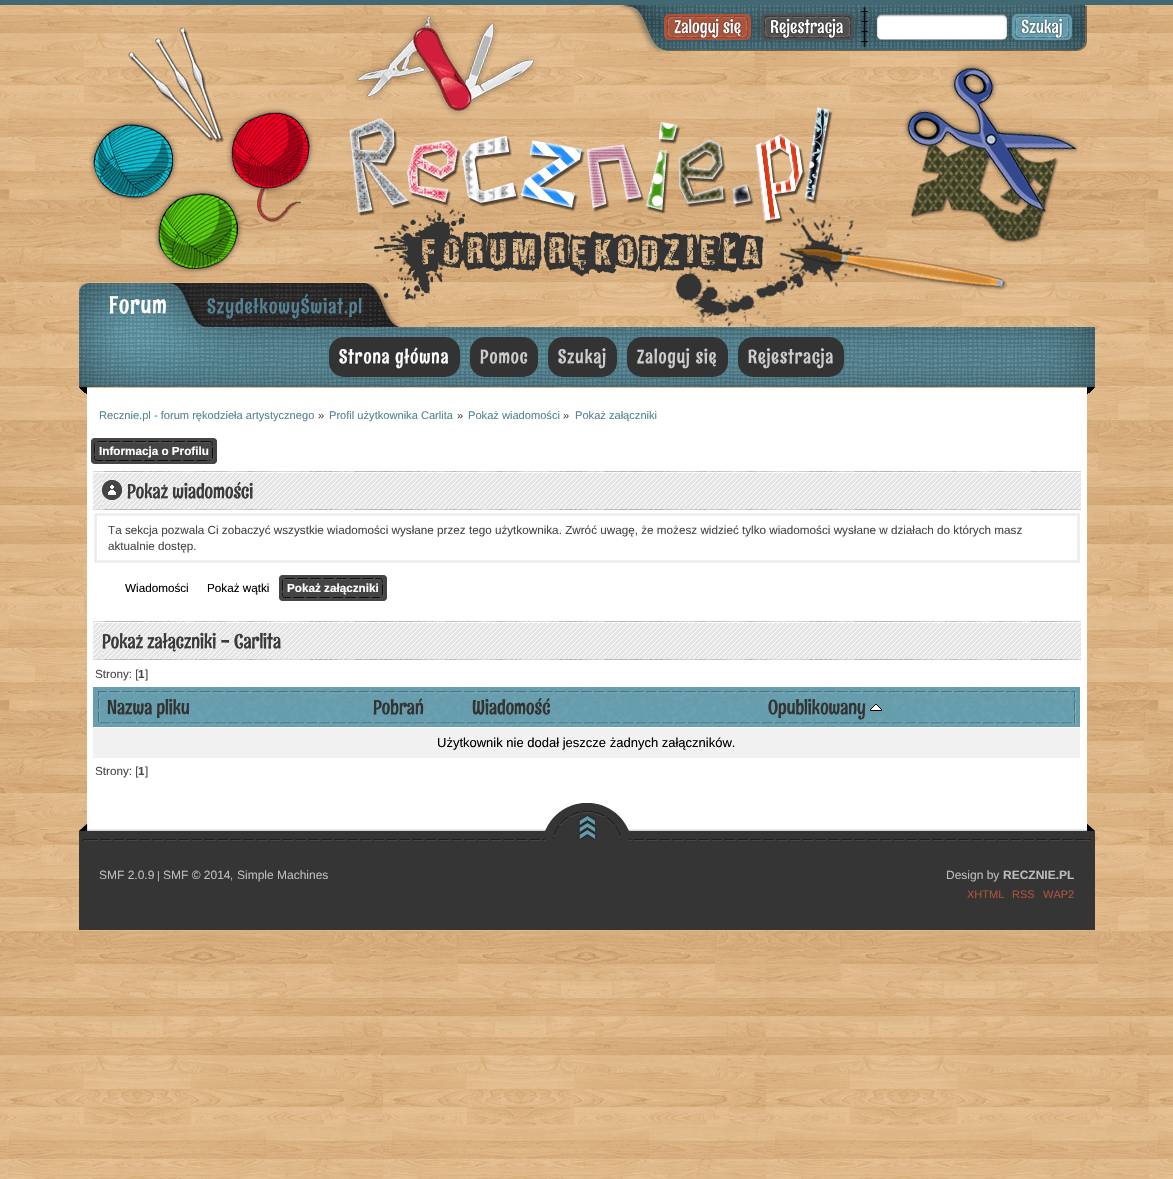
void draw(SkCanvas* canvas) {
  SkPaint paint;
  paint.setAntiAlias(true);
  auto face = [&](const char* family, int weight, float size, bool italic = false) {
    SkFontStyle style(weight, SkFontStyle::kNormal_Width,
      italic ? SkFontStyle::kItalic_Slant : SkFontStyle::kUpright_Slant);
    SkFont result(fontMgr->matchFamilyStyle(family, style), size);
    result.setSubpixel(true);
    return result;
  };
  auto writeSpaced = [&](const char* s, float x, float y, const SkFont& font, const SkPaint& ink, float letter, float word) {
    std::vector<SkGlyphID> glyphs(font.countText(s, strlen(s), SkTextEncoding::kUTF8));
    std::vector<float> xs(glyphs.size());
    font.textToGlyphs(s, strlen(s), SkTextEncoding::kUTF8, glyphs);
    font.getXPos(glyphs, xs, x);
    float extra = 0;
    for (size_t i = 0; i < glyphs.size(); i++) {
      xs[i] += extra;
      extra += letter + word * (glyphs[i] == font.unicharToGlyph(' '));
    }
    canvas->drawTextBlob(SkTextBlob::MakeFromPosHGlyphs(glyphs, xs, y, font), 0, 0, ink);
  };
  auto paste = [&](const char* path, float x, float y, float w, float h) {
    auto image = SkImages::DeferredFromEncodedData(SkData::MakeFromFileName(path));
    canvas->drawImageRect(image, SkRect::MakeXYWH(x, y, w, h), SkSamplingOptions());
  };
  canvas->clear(0xffffffff);
  paste("img/1.png", 0, 5, 1173, 1174);
  paint.setColor(0xff426873);
  canvas->drawRect(SkRect::MakeXYWH(0, 0, 1173, 5), paint);
  paste("img/8.png", 89, 14, 990, 313);
  paste("img/2.png", 619, 5, 240, 49);
  paste("img/3.png", 664, 14, 87, 26);
  paste("img/4.png", 761, 14, 93, 26);
  paste("img/5.png", 859, 5, 228, 46);
  paste("img/6.png", 877, 14, 130, 26);
  paste("img/7.png", 1012, 14, 60, 26);
  paste("img/9.png", 79, 283, 321, 44);
  paste("img/10.png", 79, 327, 1016, 67);
  paint.setColor(0xff333333);
  canvas->drawRoundRect(SkRect::MakeXYWH(329, 337, 131, 40), 15, 15, paint);
  canvas->drawRoundRect(SkRect::MakeXYWH(470, 337, 68, 40), 15, 15, paint);
  canvas->drawRoundRect(SkRect::MakeXYWH(548, 337, 69, 40), 15, 15, paint);
  canvas->drawRoundRect(SkRect::MakeXYWH(627, 337, 101, 40), 15, 15, paint);
  canvas->drawRoundRect(SkRect::MakeXYWH(738, 337, 106, 40), 15, 15, paint);
  paint.setColor(0xffffffff);
  canvas->drawRect(SkRect::MakeXYWH(87, 388, 1000, 443), paint);
  paste("img/11.png", 209, 438, 8, 26);
  paste("img/12.png", 91, 438, 118, 26);
  paste("img/13.png", 93, 471, 9, 39);
  paste("img/14.png", 102, 471, 979, 39);
  paste("img/15.png", 102, 480, 20, 20);
  paint.setStroke(true);
  paint.setStrokeWidth(3);
  paint.setColor(0xffeeeeee);
  canvas->drawRect(SkRect::MakeXYWH(95.5f, 514.5f, 983, 47), paint);
  paste("img/16.png", 377, 575, 10, 26);
  paste("img/17.png", 279, 575, 98, 26);
  paste("img/13.png", 93, 621, 9, 39);
  paste("img/14.png", 102, 621, 979, 39);
  paste("img/18.png", 93, 687, 246, 40);
  paste("img/19.png", 339, 687, 119, 40);
  paste("img/20.png", 458, 687, 296, 40);
  paste("img/21.png", 754, 687, 326, 40);
  paste("img/22.png", 870, 704, 12, 7);
  paint.setStroke(false);
  paint.setColor(0xfff1f1f1);
  canvas->drawRect(SkRect::MakeXYWH(93, 728, 987, 30), paint);
  paste("img/23.png", 87, 829, 1000, 12);
  paste("img/24.png", 79, 824, 9, 17);
  paste("img/25.png", 1087, 824, 8, 17);
  paste("img/26.png", 545, 803, 84, 38);
  paint.setColor(0xff353535);
  canvas->drawRect(SkRect::MakeXYWH(79, 841, 1016, 89), paint);
  auto f0 = face("Rum Raisin", 400, 24);
  paint.setColor(0xffffffff);
  writeSpaced("Forum", 109, 313, f0, paint, 1, 0);
  auto f1 = face("Rum Raisin", 400, 20);
  paint.setColor(0xff538394);
  writeSpaced("SzydełkowyŚwiat.pl", 207, 313, f1, paint, 1, 0);
  auto f2 = face("Rum Raisin", 400, 19);
  paint.setColor(0xffffffff);
  writeSpaced("Strona główna", 339, 363, f2, paint, 1, 0);
  paint.setColor(0xffcccccc);
  {
    const struct { const char* s; float x, y; } items[] = {
      {"Pomoc", 480, 363},
      {"Szukaj", 558, 363},
      {"Zaloguj się", 637, 363},
      {"Rejestracja", 748, 363},
    };
    for (auto [s, x, y] : items) {
      writeSpaced(s, x, y, f2, paint, 1, 0);
    }
  }
  auto f3 = face("Liberation Sans", 400, 11.1f);
  paint.setColor(0xff538394);
  canvas->drawString("Recznie.pl - forum rękodzieła artystycznego", 99, 419, f3, paint);
  paint.setColor(0xff484848);
  canvas->drawString("»", 318, 419, f3, paint);
  paint.setColor(0xff538394);
  canvas->drawString("Profil użytkownika Carlita", 329, 419, f3, paint);
  paint.setColor(0xff484848);
  canvas->drawString("»", 457, 419, f3, paint);
  paint.setColor(0xff538394);
  canvas->drawString("Pokaż wiadomości", 468, 419, f3, paint);
  paint.setColor(0xff484848);
  canvas->drawString("»", 563, 419, f3, paint);
  paint.setColor(0xff538394);
  canvas->drawString("Pokaż załączniki", 575, 419, f3, paint);
  auto f4 = face("Liberation Sans", 700, 11.7f);
  paint.setColor(0xffffffff);
  canvas->drawString("Informacja o Profilu", 99, 455, f4, paint);
  paint.setColor(0xff3b3b3b);
  canvas->drawString("Pokaż wiadomości", 127, 498, f1, paint);
  auto f5 = face("Liberation Sans", 400, 11.7f);
  paint.setColor(0xff484848);
  canvas->drawString("Ta sekcja pozwala Ci zobaczyć wszystkie wiadomości wysłane przez tego użytkownika. Zwróć uwagę, że możesz widzieć tylko wiadomości wysłane w działach do których masz", 108, 534, f5, paint);
  canvas->drawString("aktualnie dostęp.", 108, 550, f5, paint);
  paint.setColor(0xff000000);
  canvas->drawString("Wiadomości", 125, 592, f5, paint);
  canvas->drawString("Pokaż wątki", 207, 592, f5, paint);
  paint.setColor(0xffffffff);
  canvas->drawString("Pokaż załączniki", 287, 592, f4, paint);
  paint.setColor(0xff3b3b3b);
  canvas->drawString("Pokaż załączniki - Carlita", 102, 648, f1, paint);
  paint.setColor(0xff484848);
  canvas->drawString("Strony: [", 95, 678, f5, paint);
  canvas->drawString("1", 138, 678, f4, paint);
  canvas->drawString("]", 145, 678, f5, paint);
  paint.setColor(0xff333333);
  {
    const struct { const char* s; float x, y; } items[] = {
      {"Nazwa pliku", 107, 714},
      {"Pobrań", 373, 714},
      {"Wiadomość", 472, 714},
      {"Opublikowany", 768, 714},
    };
    for (auto [s, x, y] : items) {
      canvas->drawString(s, x, y, f1, paint);
    }
  }
  auto f6 = face("Liberation Sans", 400, 13);
  paint.setColor(0xff000000);
  canvas->drawString("Użytkownik nie dodał jeszcze żadnych załączników.", 437, 747, f6, paint);
  paint.setColor(0xff484848);
  canvas->drawString("Strony: [", 95, 775, f5, paint);
  canvas->drawString("1", 138, 775, f4, paint);
  canvas->drawString("]", 145, 775, f5, paint);
  auto f7 = face("Liberation Sans", 400, 12);
  paint.setColor(0xffbcbcbc);
  canvas->drawString("SMF 2.0.9", 99, 879, f7, paint);
  auto f8 = face("Liberation Sans", 400, 11);
  canvas->drawString("|", 157, 879, f8, paint);
  canvas->drawString("SMF © 2014", 163, 879, f7, paint);
  canvas->drawString(",", 230, 879, f8, paint);
  canvas->drawString("Simple Machines", 237, 879, f7, paint);
  canvas->drawString("Design by", 946, 879, f7, paint);
  auto f9 = face("Liberation Sans", 700, 12);
  canvas->drawString("RECZNIE.PL", 1003, 879, f9, paint);
  paint.setColor(0xffac533c);
  {
    const struct { const char* s; float x, y; } items[] = {
      {"XHTML", 967, 898},
      {"RSS", 1012, 898},
      {"WAP2", 1043, 898},
    };
    for (auto [s, x, y] : items) {
      canvas->drawString(s, x, y, f8, paint);
    }
  }
}
